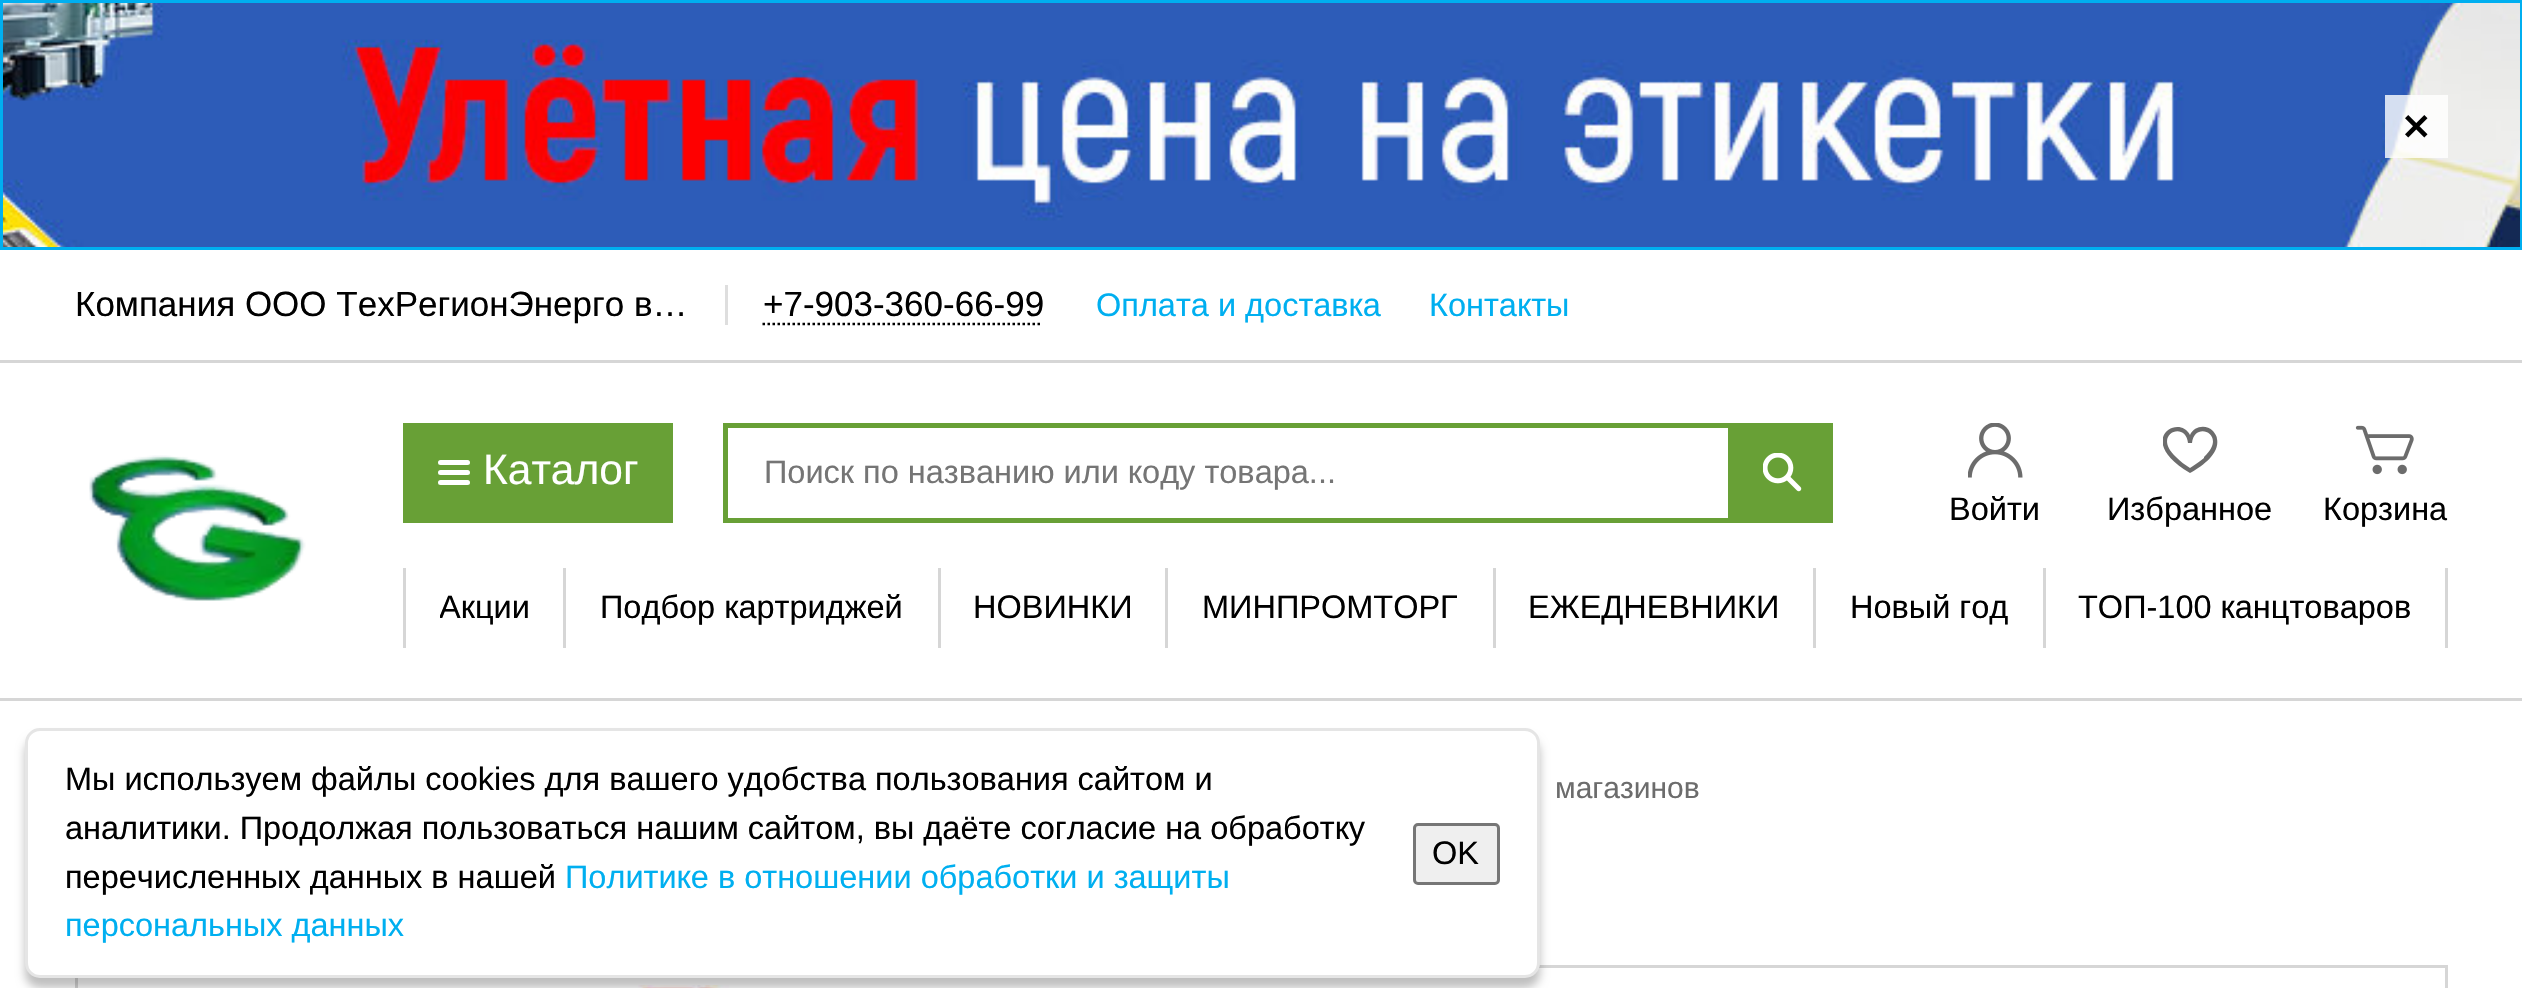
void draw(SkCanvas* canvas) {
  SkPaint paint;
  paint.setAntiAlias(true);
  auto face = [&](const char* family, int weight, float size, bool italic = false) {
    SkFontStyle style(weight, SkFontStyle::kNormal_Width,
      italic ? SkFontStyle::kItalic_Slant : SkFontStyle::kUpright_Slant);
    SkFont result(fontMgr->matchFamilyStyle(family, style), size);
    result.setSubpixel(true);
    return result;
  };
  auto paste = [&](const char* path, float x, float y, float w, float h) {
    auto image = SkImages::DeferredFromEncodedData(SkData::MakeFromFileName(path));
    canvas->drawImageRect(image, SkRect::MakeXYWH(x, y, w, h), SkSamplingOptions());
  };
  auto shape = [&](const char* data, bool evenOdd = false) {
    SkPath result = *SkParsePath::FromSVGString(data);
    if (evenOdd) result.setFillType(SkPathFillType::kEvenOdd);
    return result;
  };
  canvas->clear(0xffffffff);
  paste("img/1.png", 3, 3, 2517, 244);
  paint.setStroke(true);
  paint.setStrokeWidth(3);
  paint.setColor(0xff00aff0);
  canvas->drawRect(SkRect::MakeXYWH(1.5f, 1.5f, 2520, 247), paint);
  paint.setStroke(false);
  paint.setColor(0xccffffff);
  canvas->drawRect(SkRect::MakeXYWH(2385, 95, 63, 63), paint);
  paste("img/2.png", 2405, 115, 23, 23);
  paint.setColor(0xffd6d6d6);
  canvas->drawRect(SkRect::MakeXYWH(0, 360, 2522, 3), paint);
  paint.setColor(0xffdedede);
  canvas->drawRect(SkRect::MakeXYWH(725, 285, 3, 40), paint);
  paint.setStroke(true);
  paint.setStrokeWidth(2.5f);
  paint.setColor(0xff000000);
  paint.setPathEffect(SkDashPathEffect::Make({{2.5f, 2.5f}}, 0));
  canvas->drawPath(shape("M762.5 324H1042.5"), paint);
  paint.setPathEffect(nullptr);
  paint.setStroke(false);
  paint.setColor(0xffd6d6d6);
  canvas->drawRect(SkRect::MakeXYWH(0, 698, 2522, 3), paint);
  paste("img/3.png", 89, 455, 217, 146);
  paint.setColor(0xff68a036);
  canvas->drawRect(SkRect::MakeXYWH(403, 423, 270, 100), paint);
  paint.setColor(0xffffffff);
  canvas->drawRoundRect(SkRect::MakeXYWH(438, 470, 32, 5), 2.5f, 2.5f, paint);
  canvas->drawRoundRect(SkRect::MakeXYWH(438, 460, 32, 5), 2.5f, 2.5f, paint);
  canvas->drawRoundRect(SkRect::MakeXYWH(438, 480, 32, 5), 2.5f, 2.5f, paint);
  paint.setStroke(true);
  paint.setStrokeWidth(5);
  paint.setColor(0xff68a036);
  canvas->drawRect(SkRect::MakeXYWH(725.5f, 425.5f, 1105, 95), paint);
  paint.setStroke(false);
  canvas->drawRect(SkRect::MakeXYWH(1728, 428, 100, 90), paint);
  paste("img/4.png", 1763, 453, 39, 39);
  paste("img/5.png", 1968, 423, 55, 55);
  canvas->save();
  canvas->clipRect(SkRect::MakeXYWH(2163, 423, 55, 55));
  paint.setColor(0xff6c6c6c);
  canvas->drawPath(shape("M2213 431C2206 424 2194 426 2190 435C2179 413 2134 440 2190 473C2201 467 2220 454 2217 439C2217 436 2215 434 2213 431ZM2204 458C2200 461 2195 465 2190 468C2185 465 2180 461 2176 457C2151 434 2186 420 2188 443H2192C2194 420 2229 434 2204 457Z"), paint);
  canvas->restore();
  paste("img/6.png", 2355, 425, 59, 50);
  {
    const struct { float x, y, w, h; SkColor color; } items[] = {
      {563, 568, 3, 80, 0xffd6d6d6},
      {403, 568, 3, 80, 0xffd6d6d6},
      {938, 568, 3, 80, 0xffd6d6d6},
      {1165, 568, 3, 80, 0xffd6d6d6},
      {1493, 568, 3, 80, 0xffd6d6d6},
      {1813, 568, 3, 80, 0xffd6d6d6},
      {2043, 568, 3, 80, 0xffd6d6d6},
      {2445, 568, 3, 80, 0xffd6d6d6},
    };
    for (auto [x, y, w, h, color] : items) {
      paint.setColor(color);
      canvas->drawRect(SkRect::MakeXYWH(x, y, w, h), paint);
    }
  }
  paint.setStroke(true);
  paint.setStrokeWidth(3);
  canvas->drawRect(SkRect::MakeXYWH(76.5f, 966.5f, 2370, 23), paint);
  paste("img/7.png", 638, 985, 91, 3);
  paint.setStroke(false);
  paint.setColor(0x40000000);
  paint.setMaskFilter(SkMaskFilter::MakeBlur(kNormal_SkBlurStyle, 5));
  canvas->drawRoundRect(SkRect::MakeXYWH(25, 738, 1515, 250), 15, 15, paint);
  paint.setMaskFilter(nullptr);
  paint.setColor(0xffffffff);
  canvas->drawRoundRect(SkRect::MakeXYWH(26.5f, 729.5f, 1512, 247), 13.5f, 13.5f, paint);
  paint.setStroke(true);
  paint.setColor(0xffe5e5e5);
  canvas->drawRoundRect(SkRect::MakeXYWH(26.5f, 729.5f, 1512, 247), 13.5f, 13.5f, paint);
  paint.setStroke(false);
  paint.setColor(0xffefefef);
  canvas->drawRoundRect(SkRect::MakeXYWH(1414.5f, 824.5f, 84, 59), 3.5f, 3.5f, paint);
  paint.setStroke(true);
  paint.setColor(0xff767676);
  canvas->drawRoundRect(SkRect::MakeXYWH(1414.5f, 824.5f, 84, 59), 3.5f, 3.5f, paint);
  auto f0 = face("Liberation Sans", 400, 35);
  paint.setStroke(false);
  paint.setColor(0xff000000);
  canvas->drawString("Компания ООО ТехРегионЭнерго в…", 75, 316, f0, paint);
  canvas->drawString("+7-903-360-66-99", 763, 316, f0, paint);
  auto f1 = face("Liberation Sans", 400, 32.5f);
  paint.setColor(0xff00aff0);
  canvas->drawString("Оплата и доставка", 1096, 316, f1, paint);
  canvas->drawString("Контакты", 1429, 316, f1, paint);
  auto f2 = face("Liberation Sans", 400, 42.5f);
  paint.setColor(0xffffffff);
  canvas->drawString("Каталог", 483, 484, f2, paint);
  paint.setColor(0xff757575);
  canvas->drawString("Поиск по названию или коду товара...", 764, 483, f1, paint);
  paint.setColor(0xff000000);
  {
    const struct { const char* s; float x, y; } items[] = {
      {"Войти", 1949, 520},
      {"Избранное", 2107, 520},
      {"Корзина", 2323, 520},
    };
    for (auto [s, x, y] : items) {
      canvas->drawString(s, x, y, f1, paint);
    }
  }
  canvas->save();
  canvas->clipRect(SkRect::MakeXYWH(440, 588, 90, 40));
  canvas->drawString("Акции", 439, 618, f1, paint);
  canvas->restore();
  {
    const struct { const char* s; float x, y; } items[] = {
      {"Подбор картриджей", 600, 618},
      {"НОВИНКИ", 973, 618},
      {"МИНПРОМТОРГ", 1202, 618},
      {"ЕЖЕДНЕВНИКИ", 1528, 618},
      {"Новый год", 1850, 618},
      {"ТОП-100 канцтоваров", 2078, 618},
      {"Мы используем файлы cookies для вашего удобства пользования сайтом и", 65, 790},
      {"аналитики. Продолжая пользоваться нашим сайтом, вы даёте согласие на обработку", 65, 839},
      {"перечисленных данных в нашей", 65, 888},
    };
    for (auto [s, x, y] : items) {
      canvas->drawString(s, x, y, f1, paint);
    }
  }
  paint.setColor(0xff00aff0);
  canvas->drawString("Политике в отношении обработки и защиты", 565, 888, f1, paint);
  canvas->drawString("персональных данных", 65, 936, f1, paint);
  paint.setColor(0xff000000);
  canvas->drawString("OK", 1432, 864, f1, paint);
  auto f3 = face("Liberation Sans", 400, 30);
  paint.setColor(0xff6c6c6c);
  canvas->drawString("магазинов", 1555, 798, f3, paint);
}
